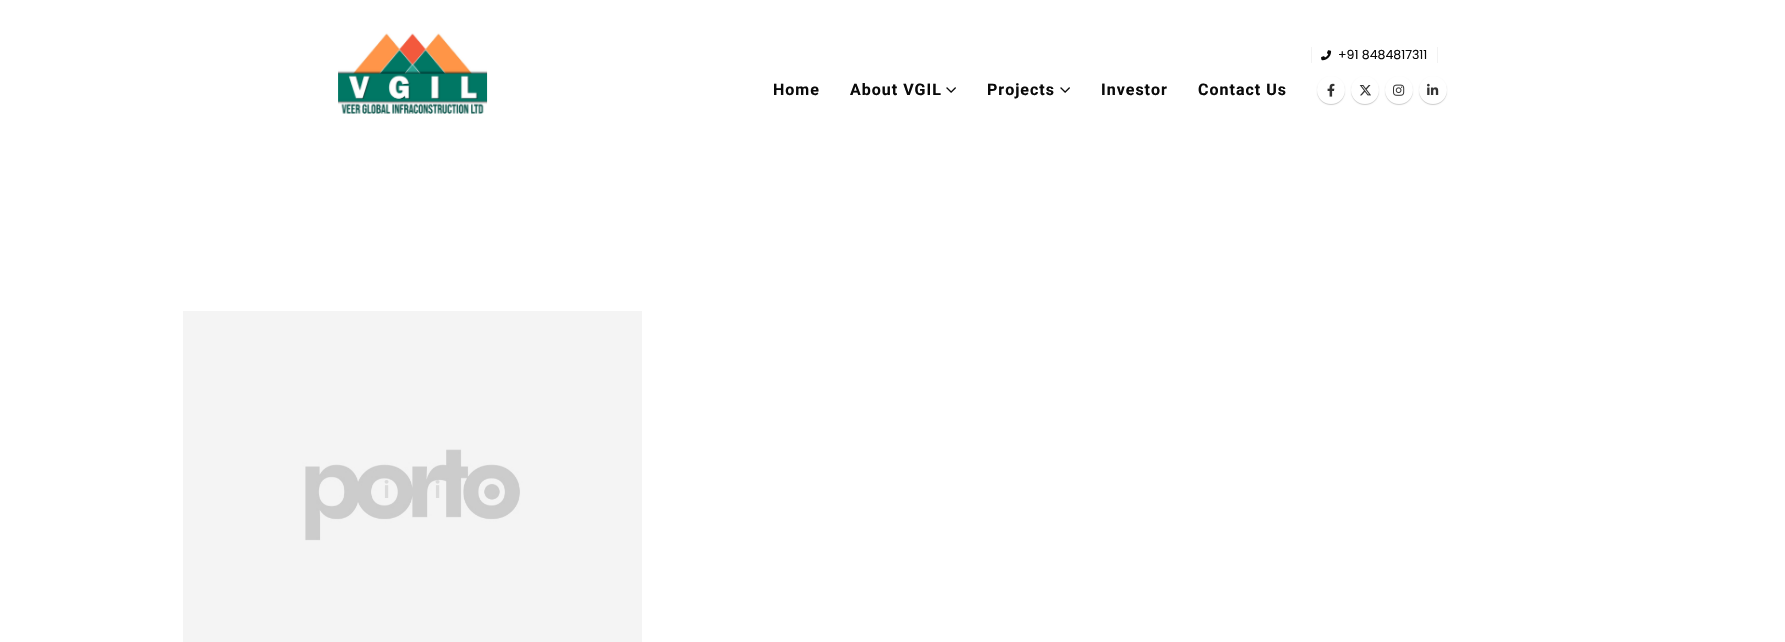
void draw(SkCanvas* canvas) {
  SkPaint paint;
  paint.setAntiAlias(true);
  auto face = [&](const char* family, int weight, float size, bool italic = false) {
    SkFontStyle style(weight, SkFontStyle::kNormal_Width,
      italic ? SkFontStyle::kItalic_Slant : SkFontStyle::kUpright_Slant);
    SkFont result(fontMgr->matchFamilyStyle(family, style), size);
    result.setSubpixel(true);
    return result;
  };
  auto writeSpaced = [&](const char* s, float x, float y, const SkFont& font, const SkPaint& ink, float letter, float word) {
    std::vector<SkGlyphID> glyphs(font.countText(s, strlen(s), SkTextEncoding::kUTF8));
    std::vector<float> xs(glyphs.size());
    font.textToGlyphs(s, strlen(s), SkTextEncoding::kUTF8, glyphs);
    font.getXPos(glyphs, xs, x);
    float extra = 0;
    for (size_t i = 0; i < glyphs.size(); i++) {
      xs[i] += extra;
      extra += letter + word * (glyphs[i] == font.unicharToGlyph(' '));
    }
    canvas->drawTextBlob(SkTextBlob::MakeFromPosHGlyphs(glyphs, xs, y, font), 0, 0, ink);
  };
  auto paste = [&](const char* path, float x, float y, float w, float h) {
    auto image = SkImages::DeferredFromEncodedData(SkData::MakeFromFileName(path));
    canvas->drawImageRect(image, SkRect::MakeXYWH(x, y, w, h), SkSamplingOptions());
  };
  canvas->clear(0xffffffff);
  paste("img/1.png", 338, 33, 150, 81);
  paint.setColor(0xfff2f2f2);
  canvas->drawRect(SkRect::MakeXYWH(1311, 47, 1, 16), paint);
  paste("img/2.png", 1321, 50, 11, 11);
  canvas->drawRect(SkRect::MakeXYWH(1437, 47, 1, 16), paint);
  paste("img/3.png", 946, 87, 10, 6);
  paste("img/3.png", 1060, 87, 10, 6);
  paint.setColor(0x33000000);
  paint.setMaskFilter(SkMaskFilter::MakeBlur(kNormal_SkBlurStyle, 0.5f));
  canvas->drawRoundRect(SkRect::MakeXYWH(1317, 77, 28, 28), 14, 14, paint);
  paint.setMaskFilter(nullptr);
  paint.setColor(0xffffffff);
  canvas->drawCircle(1331, 90, 14, paint);
  paste("img/4.png", 1327, 83, 8, 14);
  paint.setColor(0x33000000);
  paint.setMaskFilter(SkMaskFilter::MakeBlur(kNormal_SkBlurStyle, 0.5f));
  canvas->drawRoundRect(SkRect::MakeXYWH(1351, 77, 28, 28), 14, 14, paint);
  paint.setMaskFilter(nullptr);
  paint.setColor(0xffffffff);
  canvas->drawCircle(1365, 90, 14, paint);
  paste("img/5.png", 1359, 85, 12, 11);
  paint.setColor(0x33000000);
  paint.setMaskFilter(SkMaskFilter::MakeBlur(kNormal_SkBlurStyle, 0.5f));
  canvas->drawRoundRect(SkRect::MakeXYWH(1385, 77, 28, 28), 14, 14, paint);
  paint.setMaskFilter(nullptr);
  paint.setColor(0xffffffff);
  canvas->drawCircle(1399, 90, 14, paint);
  paste("img/6.png", 1393, 84, 12, 12);
  paint.setColor(0x33000000);
  paint.setMaskFilter(SkMaskFilter::MakeBlur(kNormal_SkBlurStyle, 0.5f));
  canvas->drawRoundRect(SkRect::MakeXYWH(1419, 77, 28, 28), 14, 14, paint);
  paint.setMaskFilter(nullptr);
  paint.setColor(0xffffffff);
  canvas->drawCircle(1433, 90, 14, paint);
  paste("img/7.png", 1427, 83, 12, 12);
  paste("img/8.png", 183, 311, 459, 331);
  auto f0 = face("Poppins", 400, 12.5f);
  paint.setColor(0xff0a0a0a);
  canvas->drawString("+91 8484817311", 1338, 59, f0, paint);
  auto f1 = face("Roboto", 700, 16);
  {
    const struct { const char* s; float x, y; } items[] = {
      {"Home", 773, 95},
      {"About VGIL", 850, 95},
      {"Projects", 987, 95},
      {"Investor", 1101, 95},
      {"Contact Us", 1198, 95},
    };
    for (auto [s, x, y] : items) {
      writeSpaced(s, x, y, f1, paint, 1, 0);
    }
  }
  auto f2 = face("Overpass", 700, 25);
  paint.setColor(0xffdbdbdb);
  canvas->drawString("i", 383, 498, f2, paint);
  canvas->drawString("i", 434, 498, f2, paint);
}
